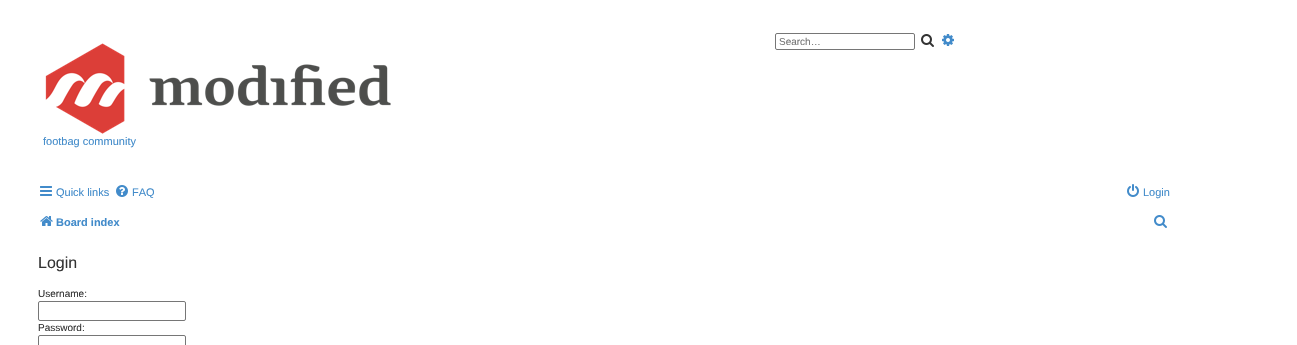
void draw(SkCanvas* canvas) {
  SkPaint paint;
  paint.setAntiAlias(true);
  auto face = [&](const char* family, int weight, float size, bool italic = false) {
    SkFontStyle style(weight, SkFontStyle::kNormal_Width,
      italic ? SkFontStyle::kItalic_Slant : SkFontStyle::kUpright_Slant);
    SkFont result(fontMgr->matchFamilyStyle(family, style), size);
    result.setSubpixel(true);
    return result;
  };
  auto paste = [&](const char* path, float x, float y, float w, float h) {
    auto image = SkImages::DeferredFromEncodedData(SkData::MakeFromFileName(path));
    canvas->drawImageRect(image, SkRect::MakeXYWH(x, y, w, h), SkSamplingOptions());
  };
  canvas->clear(0xffffffff);
  paint.setStroke(true);
  paint.setStrokeWidth(1);
  paint.setColor(0xff767676);
  canvas->drawRoundRect(SkRect::MakeXYWH(775.5f, 33.5f, 139, 16), 1.5f, 1.5f, paint);
  paste("img/1.png", 921, 34, 13, 13);
  paste("img/2.png", 942, 34, 12, 12);
  paste("img/3.png", 45, 43, 346, 91);
  paste("img/4.png", 40, 186, 12, 10);
  paste("img/5.png", 116, 185, 12, 12);
  paste("img/6.png", 1127, 184, 12, 13);
  paste("img/7.png", 40, 216, 13, 10);
  paste("img/8.png", 1154, 215, 13, 13);
  canvas->drawRoundRect(SkRect::MakeXYWH(38.5f, 301.5f, 147, 19), 1.5f, 1.5f, paint);
  canvas->drawRoundRect(SkRect::MakeXYWH(38.5f, 335.5f, 147, 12), 1.5f, 1.5f, paint);
  auto f0 = face("Liberation Sans", 400, 10);
  paint.setStroke(false);
  paint.setColor(0xff757575);
  canvas->drawString("Search…", 779, 45, f0, paint);
  auto f1 = face("Liberation Sans", 400, 11);
  paint.setColor(0xff428bca);
  {
    const struct { const char* s; float x, y; } items[] = {
      {"footbag community", 43, 145},
      {"Quick links", 56, 196},
      {"FAQ", 132, 196},
      {"Login", 1143, 196},
    };
    for (auto [s, x, y] : items) {
      canvas->drawString(s, x, y, f1, paint);
    }
  }
  auto f2 = face("Liberation Sans", 700, 11);
  canvas->drawString("Board index", 56, 226, f2, paint);
  auto f3 = face("Liberation Sans", 400, 16);
  paint.setColor(0xff333333);
  canvas->drawString("Login", 38, 268, f3, paint);
  canvas->drawString("Username:", 38, 297, f0, paint);
  canvas->drawString("Password:", 38, 331, f0, paint);
}
